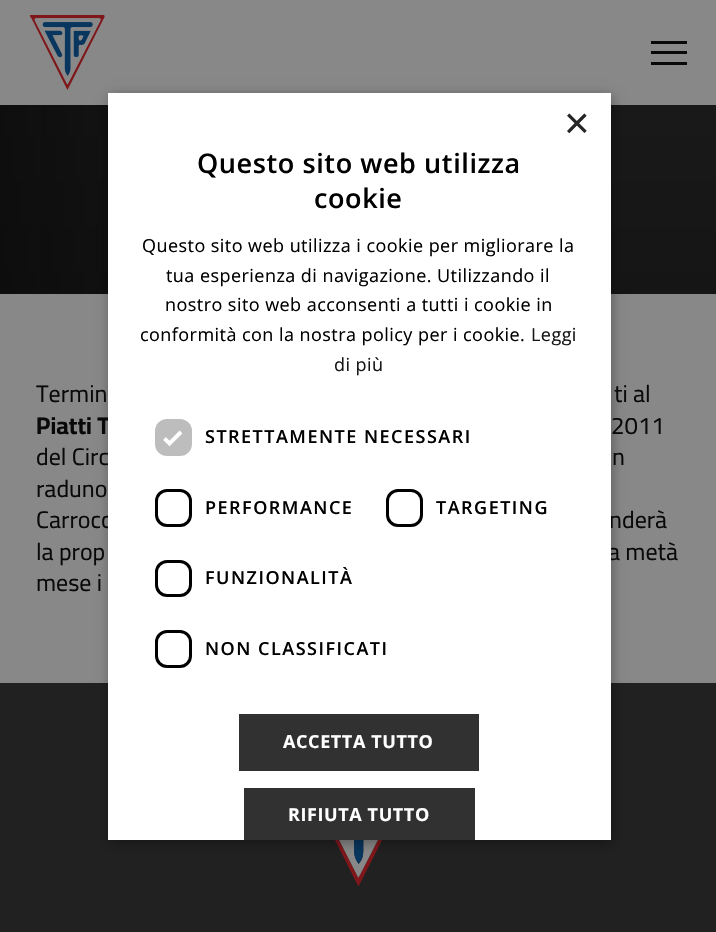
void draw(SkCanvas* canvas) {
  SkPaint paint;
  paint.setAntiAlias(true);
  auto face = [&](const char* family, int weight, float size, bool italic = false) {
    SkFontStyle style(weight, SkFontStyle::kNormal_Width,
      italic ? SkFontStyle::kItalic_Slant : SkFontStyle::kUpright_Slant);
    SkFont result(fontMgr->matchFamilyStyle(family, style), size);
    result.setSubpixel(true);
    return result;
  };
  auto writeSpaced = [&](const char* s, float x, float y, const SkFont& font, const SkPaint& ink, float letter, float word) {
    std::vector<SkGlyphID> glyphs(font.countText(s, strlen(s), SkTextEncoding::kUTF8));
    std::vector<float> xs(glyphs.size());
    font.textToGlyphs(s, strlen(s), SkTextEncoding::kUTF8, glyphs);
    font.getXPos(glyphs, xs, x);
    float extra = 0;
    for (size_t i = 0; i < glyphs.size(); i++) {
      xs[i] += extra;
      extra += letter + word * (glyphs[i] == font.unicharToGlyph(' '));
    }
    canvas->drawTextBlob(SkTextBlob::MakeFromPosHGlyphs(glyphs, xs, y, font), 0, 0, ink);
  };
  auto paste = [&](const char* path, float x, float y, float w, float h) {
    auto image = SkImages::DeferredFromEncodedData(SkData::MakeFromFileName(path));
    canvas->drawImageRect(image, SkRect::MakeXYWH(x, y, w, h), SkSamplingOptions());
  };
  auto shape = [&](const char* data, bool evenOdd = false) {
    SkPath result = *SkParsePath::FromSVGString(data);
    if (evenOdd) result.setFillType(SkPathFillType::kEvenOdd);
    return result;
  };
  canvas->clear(0xff888888);
  paste("img/1.png", 30, 15, 75, 75);
  {
    const struct { float x, y, w, h; SkColor color; } items[] = {
      {651, 41, 36, 3, 0xff090909},
      {651, 51, 36, 3, 0xff090909},
      {651, 62, 36, 3, 0xff090909},
    };
    for (auto [x, y, w, h, color] : items) {
      paint.setColor(color);
      canvas->drawRect(SkRect::MakeXYWH(x, y, w, h), paint);
    }
  }
  {
    const SkColor colors[] = {0xff212121, 0xff151515};
    const float stops[] = {0.28f, 1};
    const SkPoint ends[] = {{359, -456}, {358, 294}};
    paint.setShader(SkGradientShader::MakeLinear(ends, colors, stops, 2, SkTileMode::kClamp));
    paint.setAlpha(255);
  }
  canvas->drawRect(SkRect::MakeXYWH(0, 105, 716, 189), paint);
  {
    const SkColor colors[] = {0xb3090909, 0x00090909};
    const float stops[] = {0, 0.48f};
    const SkPoint ends[] = {{-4.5f, -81}, {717, -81}};
    paint.setShader(SkGradientShader::MakeLinear(ends, colors, stops, 2, SkTileMode::kClamp));
    paint.setAlpha(255);
  }
  canvas->drawRect(SkRect::MakeXYWH(0, 105, 108, 189), paint);
  paint.setShader(nullptr);
  paint.setColor(0xff212121);
  canvas->drawRect(SkRect::MakeXYWH(0, 683, 716, 249), paint);
  paste("img/2.png", 335, 840, 47, 46);
  paint.setColor(0x59000000);
  paint.setMaskFilter(SkMaskFilter::MakeBlur(kNormal_SkBlurStyle, 6));
  canvas->drawRect(SkRect::MakeXYWH(110, 96, 502, 747), paint);
  paint.setMaskFilter(nullptr);
  auto f0 = face("Cairo", 400, 24);
  paint.setColor(0xff090909);
  canvas->drawString("Termin", 36, 402, f0, paint);
  canvas->drawString("ti al", 614, 402, f0, paint);
  auto f1 = face("Cairo", 700, 24);
  canvas->drawString("Piatti T", 36, 434, f1, paint);
  {
    const struct { const char* s; float x, y; } items[] = {
      {"2011", 611, 434},
      {"del Circ", 36, 465},
      {"n", 612, 465},
      {"raduno", 36, 497},
      {"Carrocc", 36, 528},
      {"nderà", 609, 528},
      {"la prop", 36, 560},
      {"a metà", 608, 560},
    };
    for (auto [s, x, y] : items) {
      canvas->drawString(s, x, y, f0, paint);
    }
  }
  paint.setColor(0xffffffff);
  canvas->drawRect(SkRect::MakeXYWH(108, 93, 503, 747), paint);
  auto f2 = face("Liberation Sans", 400, 44);
  paint.setColor(0xff262626);
  canvas->drawString("×", 564, 138, f2, paint);
  auto f3 = face("Open Sans", 600, 27);
  paint.setColor(0xff000000);
  writeSpaced("cookie", 314, 208, f3, paint, 0.6f, 0);
  writeSpaced("Questo sito web utilizza", 197, 173, f3, paint, 0.6f, 0);
  paint.setStroke(true);
  paint.setStrokeWidth(3);
  canvas->drawRoundRect(SkRect::MakeXYWH(156.5f, 631.5f, 34, 35), 10.5f, 10.5f, paint);
  canvas->drawRoundRect(SkRect::MakeXYWH(156.5f, 561.5f, 34, 34), 10.5f, 10.5f, paint);
  canvas->drawRoundRect(SkRect::MakeXYWH(387.5f, 490.5f, 34, 35), 10.5f, 10.5f, paint);
  canvas->drawRoundRect(SkRect::MakeXYWH(156.5f, 490.5f, 34, 35), 10.5f, 10.5f, paint);
  paint.setStroke(false);
  paint.setColor(0xffbdbdbd);
  canvas->drawRoundRect(SkRect::MakeXYWH(155, 419, 37, 37), 12, 12, paint);
  paint.setStroke(true);
  paint.setStrokeWidth(3.9f);
  paint.setColor(0xffffffff);
  canvas->drawPath(shape("M164.5 438.5L169.5 443.5L181 432"), paint);
  paint.setStroke(false);
  paint.setColor(0xff313131);
  canvas->drawRect(SkRect::MakeXYWH(244, 788, 231, 52), paint);
  auto f4 = face("Open Sans", 700, 18);
  paint.setColor(0xffffffff);
  writeSpaced("RIFIUTA TUTTO", 288, 821, f4, paint, 0.6f, 0);
  paint.setColor(0xff313131);
  canvas->drawRect(SkRect::MakeXYWH(239, 714, 240, 57), paint);
  paint.setColor(0xffffffff);
  writeSpaced("ACCETTA TUTTO", 283, 748, f4, paint, 0.6f, 0);
  auto f5 = face("Open Sans", 600, 18);
  paint.setColor(0xff000000);
  {
    const struct { const char* s; float x, y; } items[] = {
      {"NON CLASSIFICATI", 205, 655},
      {"FUNZIONALITÀ", 205, 584},
      {"TARGETING", 436, 514},
      {"PERFORMANCE", 205, 514},
      {"STRETTAMENTE NECESSARI", 205, 443},
    };
    for (auto [s, x, y] : items) {
      writeSpaced(s, x, y, f5, paint, 1.5f, 0);
    }
  }
  auto f6 = face("Open Sans", 400, 18);
  paint.setColor(0xff161616);
  writeSpaced("di più", 334, 371, f6, paint, 0.45f, 0);
  writeSpaced("Leggi", 531, 341, f6, paint, 0.45f, 0);
  paint.setColor(0xff000000);
  {
    const struct { const char* s; float x, y; } items[] = {
      {"conformità con la nostra policy per i cookie.", 140, 341},
      {"nostro sito web acconsenti a tutti i cookie in", 165, 311},
      {"tua esperienza di navigazione. Utilizzando il", 166, 282},
      {"Questo sito web utilizza i cookie per migliorare la", 142, 252},
    };
    for (auto [s, x, y] : items) {
      writeSpaced(s, x, y, f6, paint, 0.45f, 0);
    }
  }
  paint.setColor(0xff090909);
  canvas->drawString("mese i", 36, 591, f0, paint);
}
